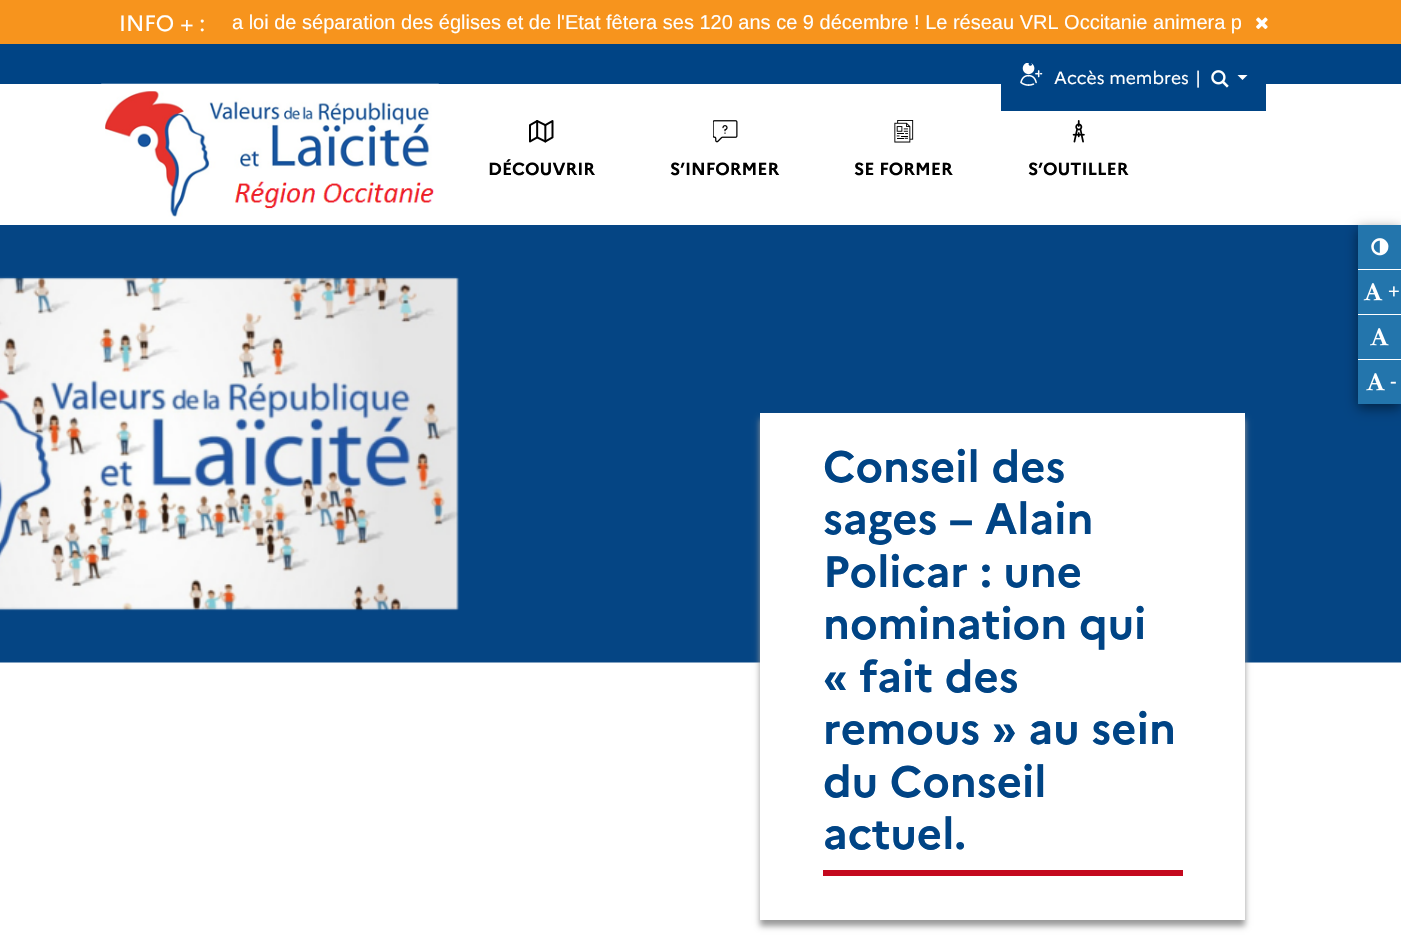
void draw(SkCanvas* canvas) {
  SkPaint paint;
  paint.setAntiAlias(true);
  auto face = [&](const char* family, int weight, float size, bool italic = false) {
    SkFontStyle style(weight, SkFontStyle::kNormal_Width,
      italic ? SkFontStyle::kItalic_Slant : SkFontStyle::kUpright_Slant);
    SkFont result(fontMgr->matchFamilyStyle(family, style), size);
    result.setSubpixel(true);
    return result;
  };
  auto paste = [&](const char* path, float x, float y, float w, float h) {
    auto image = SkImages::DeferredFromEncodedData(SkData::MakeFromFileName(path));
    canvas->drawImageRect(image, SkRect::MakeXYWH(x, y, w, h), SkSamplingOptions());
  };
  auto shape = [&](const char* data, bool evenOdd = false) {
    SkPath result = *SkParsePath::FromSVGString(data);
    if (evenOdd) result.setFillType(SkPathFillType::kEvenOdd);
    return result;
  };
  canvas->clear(0xffffffff);
  paint.setColor(0xfff7941d);
  canvas->drawRect(SkRect::MakeXYWH(0, 0, 1401, 44), paint);
  paste("img/1.png", 1256, 17, 12, 12);
  paint.setColor(0xff004485);
  canvas->drawRect(SkRect::MakeXYWH(0, 44, 1401, 40), paint);
  canvas->drawRect(SkRect::MakeXYWH(1001, 84, 265, 27), paint);
  paste("img/2.png", 1020, 63, 23, 23);
  paste("img/3.png", 1211, 70, 18, 18);
  paint.setColor(0xffffffff);
  canvas->drawPath(shape("M1237.5 75H1247.5L1242.5 80Z"), paint);
  paste("img/4.png", 101, 83, 338, 134);
  paste("img/5.png", 529, 120, 25, 23);
  paste("img/6.png", 713, 120, 25, 23);
  paste("img/7.png", 894, 120, 20, 23);
  paste("img/8.png", 1072, 120, 13, 23);
  paste("img/9.png", 0, 225, 1401, 438);
  paint.setColor(0xff999999);
  paint.setMaskFilter(SkMaskFilter::MakeBlur(kNormal_SkBlurStyle, 3));
  canvas->drawRect(SkRect::MakeXYWH(760, 419, 485, 507), paint);
  paint.setMaskFilter(nullptr);
  paint.setColor(0xffffffff);
  canvas->drawRect(SkRect::MakeXYWH(760, 413, 485, 507), paint);
  paint.setColor(0xffc4091e);
  canvas->drawRect(SkRect::MakeXYWH(823, 870, 360, 6), paint);
  paint.setColor(0x80000000);
  paint.setMaskFilter(SkMaskFilter::MakeBlur(kNormal_SkBlurStyle, 6));
  canvas->drawRect(SkRect::MakeXYWH(1358, 229, 43, 179), paint);
  paint.setMaskFilter(nullptr);
  paint.setColor(0xff2375ac);
  canvas->drawRect(SkRect::MakeXYWH(1358, 225, 43, 179), paint);
  paint.setColor(0xffffffff);
  canvas->drawRect(SkRect::MakeXYWH(1358, 269, 43, 1), paint);
  paste("img/10.png", 1371, 238, 18, 18);
  canvas->drawRect(SkRect::MakeXYWH(1358, 314, 43, 1), paint);
  paste("img/11.png", 1363, 283, 20, 18);
  canvas->drawRect(SkRect::MakeXYWH(1358, 359, 43, 1), paint);
  paste("img/12.png", 1370, 328, 19, 18);
  paste("img/13.png", 1366, 373, 19, 18);
  auto f0 = face("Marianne", 400, 22);
  canvas->drawString("INFO + :", 119, 31, f0, paint);
  auto f1 = face("Liberation Sans", 400, 20);
  canvas->drawString("a loi de séparation des églises et de l'Etat fêtera ses 120 ans ce 9 décembre ! Le réseau VRL Occitanie animera p", 232, 29, f1, paint);
  auto f2 = face("Marianne", 400, 17.5f);
  canvas->drawString("Accès membres", 1054, 84, f2, paint);
  canvas->drawString("|", 1195, 84, f2, paint);
  auto f3 = face("Marianne", 700, 17.5f);
  paint.setColor(0xff000000);
  {
    const struct { const char* s; float x, y; } items[] = {
      {"DÉCOUVRIR", 488, 175},
      {"S’INFORMER", 670, 175},
      {"SE FORMER", 854, 175},
      {"S’OUTILLER", 1028, 175},
    };
    for (auto [s, x, y] : items) {
      canvas->drawString(s, x, y, f3, paint);
    }
  }
  auto f4 = face("Marianne", 700, 43.75f);
  paint.setColor(0xff004485);
  {
    const struct { const char* s; float x, y; } items[] = {
      {"Conseil des", 823, 482},
      {"sages – Alain", 823, 534},
      {"Policar : une", 823, 587},
      {"nomination qui", 823, 639},
      {"« fait des", 823, 692},
      {"remous » au sein", 823, 744},
      {"du Conseil", 823, 797},
      {"actuel.", 823, 849},
    };
    for (auto [s, x, y] : items) {
      canvas->drawString(s, x, y, f4, paint);
    }
  }
  paint.setColor(0xffffffff);
  canvas->drawString("+", 1388, 298, f1, paint);
  canvas->drawString("-", 1390, 388, f1, paint);
}
